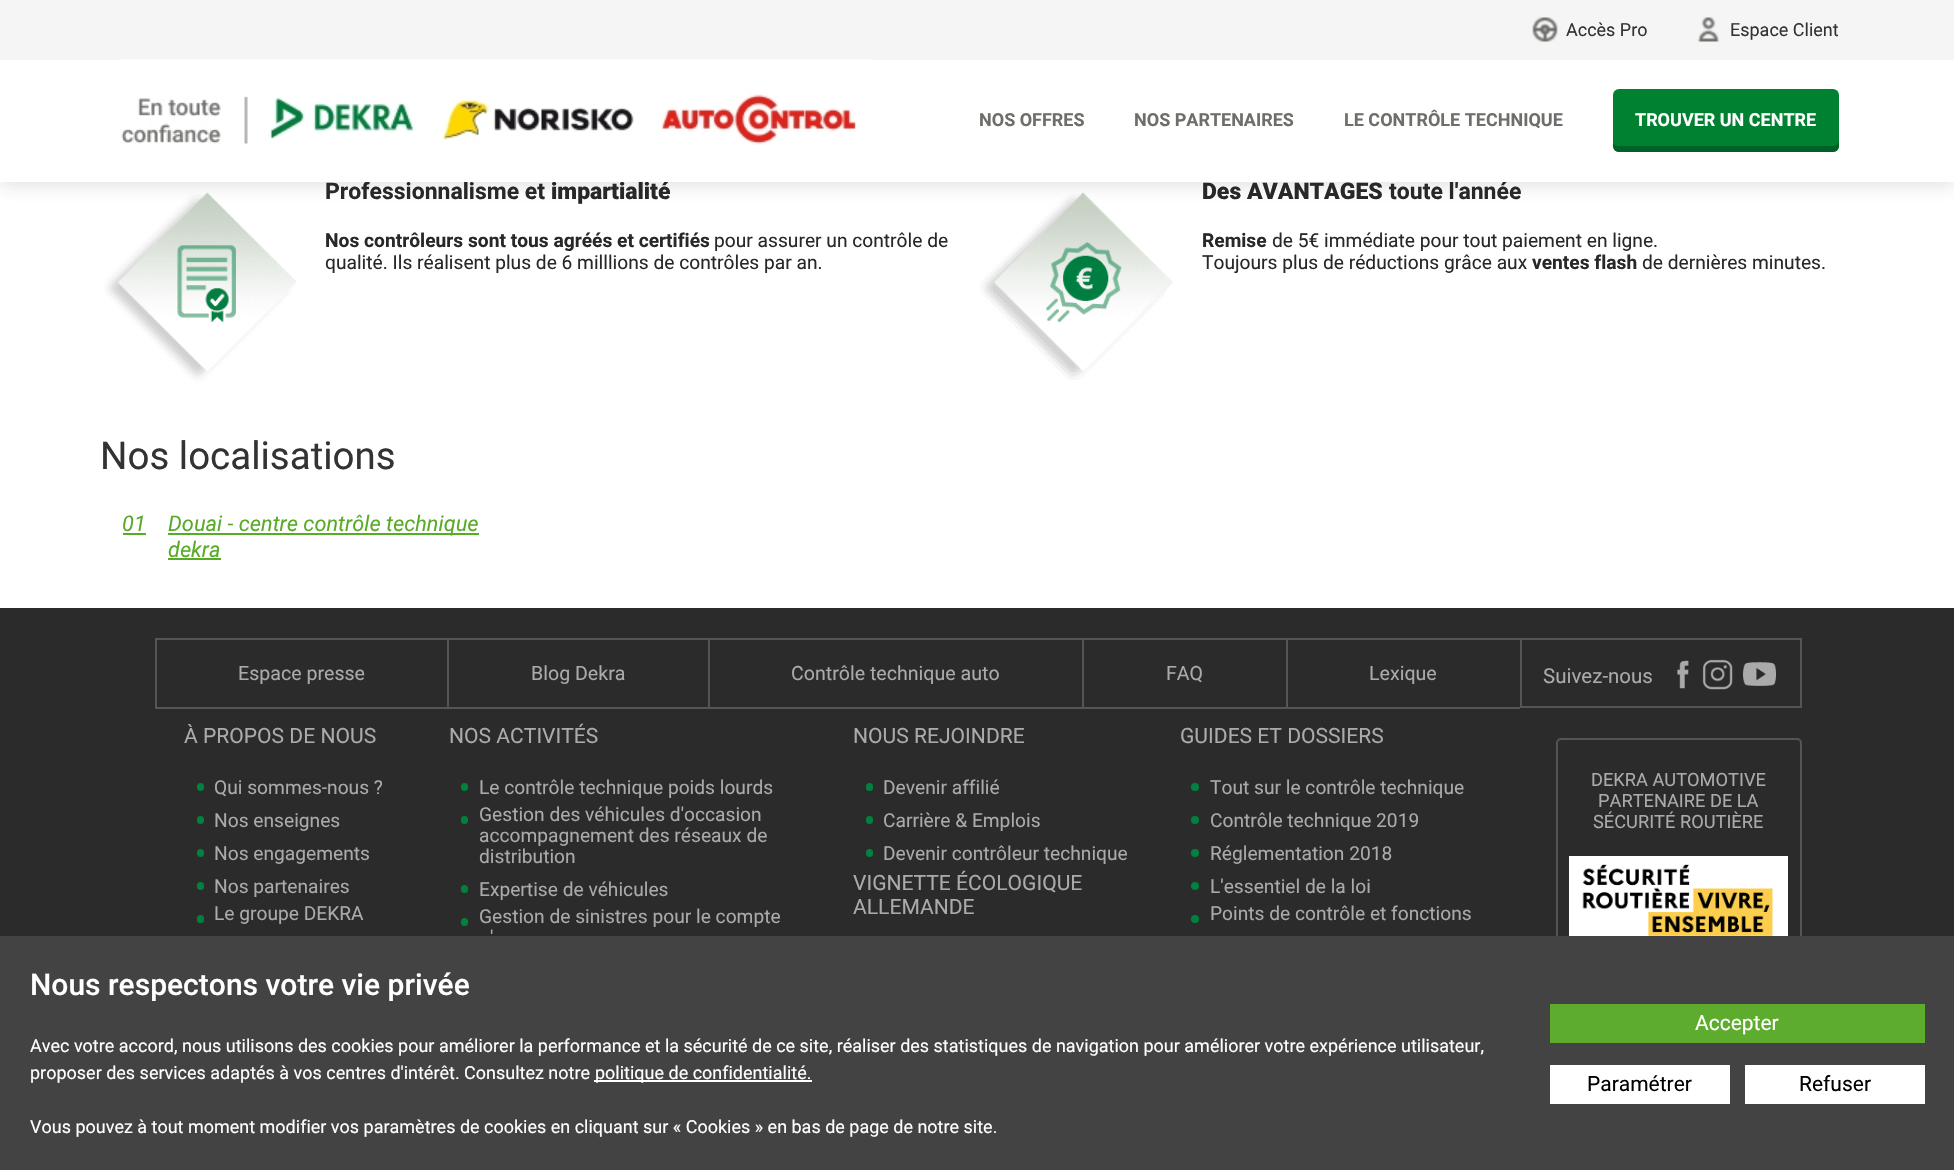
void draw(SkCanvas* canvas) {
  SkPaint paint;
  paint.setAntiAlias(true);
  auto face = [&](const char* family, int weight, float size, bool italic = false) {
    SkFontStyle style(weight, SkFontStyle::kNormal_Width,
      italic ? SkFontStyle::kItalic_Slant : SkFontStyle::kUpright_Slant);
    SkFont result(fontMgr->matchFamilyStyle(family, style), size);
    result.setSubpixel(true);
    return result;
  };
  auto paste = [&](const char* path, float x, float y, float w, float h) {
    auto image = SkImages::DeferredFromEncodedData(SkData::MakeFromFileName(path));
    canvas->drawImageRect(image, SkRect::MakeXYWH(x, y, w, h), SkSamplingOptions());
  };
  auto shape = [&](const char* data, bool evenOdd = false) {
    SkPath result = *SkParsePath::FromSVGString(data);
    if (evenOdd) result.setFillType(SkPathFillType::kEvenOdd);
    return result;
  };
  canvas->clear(0xff2b2b2b);
  paint.setColor(0xffffffff);
  canvas->drawRect(SkRect::MakeXYWH(0, 182, 1954, 426), paint);
  paste("img/4.png", 104, 192, 193, 192);
  paste("img/5.png", 979, 192, 194, 188);
  paint.setColor(0x26282828);
  paint.setMaskFilter(SkMaskFilter::MakeBlur(kNormal_SkBlurStyle, 9));
  canvas->drawRect(SkRect::MakeXYWH(0, 3, 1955, 182), paint);
  paint.setMaskFilter(nullptr);
  paint.setColor(0xfff5f5f5);
  canvas->drawRect(SkRect::MakeXYWH(0, 0, 1954, 60), paint);
  paste("img/1.png", 1532, 17, 26, 25);
  paste("img/2.png", 1697, 17, 23, 25);
  {
    const struct { float x, y, w, h; SkColor color; } items[] = {
      {123, 533, 23, 2, 0xff57ab27},
      {168, 533, 311, 2, 0xff57ab27},
      {168, 558, 53, 2, 0xff57ab27},
      {155, 638, 1365, 2, 0xff555555},
      {155, 707, 1365, 2, 0xff555555},
      {155, 638, 2, 70, 0xff555555},
      {447, 638, 2, 70, 0xff555555},
      {708, 638, 2, 70, 0xff555555},
      {1082, 638, 2, 70, 0xff555555},
      {1286, 638, 2, 70, 0xff555555},
    };
    for (auto [x, y, w, h, color] : items) {
      paint.setColor(color);
      canvas->drawRect(SkRect::MakeXYWH(x, y, w, h), paint);
    }
  }
  paint.setStroke(true);
  paint.setStrokeWidth(2);
  canvas->drawRect(SkRect::MakeXYWH(1521, 639, 280, 68), paint);
  paste("img/6.png", 1677, 660, 12, 29);
  paste("img/7.png", 1702, 659, 31, 31);
  paste("img/8.png", 1743, 662, 33, 24);
  paint.setStroke(false);
  paint.setColor(0xff00823f);
  canvas->drawRoundRect(SkRect::MakeXYWH(197, 783, 7, 8), 3.5f, 3.5f, paint);
  canvas->drawRoundRect(SkRect::MakeXYWH(197, 816, 7, 8), 3.5f, 3.5f, paint);
  canvas->drawRoundRect(SkRect::MakeXYWH(197, 849, 7, 8), 3.5f, 3.5f, paint);
  canvas->drawRoundRect(SkRect::MakeXYWH(197, 882, 7, 8), 3.5f, 3.5f, paint);
  canvas->drawRoundRect(SkRect::MakeXYWH(197, 915, 7, 8), 3.5f, 3.5f, paint);
  canvas->drawRoundRect(SkRect::MakeXYWH(461, 783, 7, 8), 3.5f, 3.5f, paint);
  canvas->drawRoundRect(SkRect::MakeXYWH(461, 816, 7, 8), 3.5f, 3.5f, paint);
  canvas->drawRoundRect(SkRect::MakeXYWH(461, 885, 7, 8), 3.5f, 3.5f, paint);
  canvas->drawRoundRect(SkRect::MakeXYWH(461, 918, 7, 8), 3.5f, 3.5f, paint);
  canvas->drawRoundRect(SkRect::MakeXYWH(866, 783, 7, 8), 3.5f, 3.5f, paint);
  canvas->drawRoundRect(SkRect::MakeXYWH(866, 816, 7, 8), 3.5f, 3.5f, paint);
  canvas->drawRoundRect(SkRect::MakeXYWH(866, 849, 7, 8), 3.5f, 3.5f, paint);
  canvas->drawCircle(1195, 787, 4, paint);
  canvas->drawCircle(1195, 820, 4, paint);
  canvas->drawCircle(1195, 853, 4, paint);
  canvas->drawCircle(1195, 886, 4, paint);
  canvas->drawCircle(1195, 919, 4, paint);
  paint.setStroke(true);
  paint.setColor(0xff555555);
  canvas->drawRoundRect(SkRect::MakeXYWH(1557, 739, 244, 241), 4, 4, paint);
  paste("img/9.png", 1569, 856, 219, 80);
  paint.setStroke(false);
  {
    const struct { float x, y, w, h; SkColor color; } items[] = {
      {0, 936, 1954, 234, 0xff434343},
      {594, 1080, 218, 2, 0xffffffff},
      {1550, 1004, 375, 39, 0xff5dac2e},
      {1550, 1065, 180, 39, 0xffffffff},
      {1745, 1065, 180, 39, 0xffffffff},
    };
    for (auto [x, y, w, h, color] : items) {
      paint.setColor(color);
      canvas->drawRect(SkRect::MakeXYWH(x, y, w, h), paint);
    }
  }
  auto f0 = face("Roboto", 400, 18);
  paint.setColor(0xff333333);
  canvas->drawString("Accès Pro", 1566, 36, f0, paint);
  canvas->drawString("Espace Client", 1730, 36, f0, paint);
  auto f1 = face("Roboto", 700, 23);
  paint.setColor(0xff282828);
  canvas->drawString("Professionnalisme et", 325, 199, f1, paint);
  auto f2 = face("Roboto", 900, 23);
  canvas->drawString("impartialité", 551, 199, f2, paint);
  auto f3 = face("Roboto", 700, 19.2f);
  canvas->drawString("Nos contrôleurs sont tous agréés et certifiés", 325, 247, f3, paint);
  auto f4 = face("Roboto", 400, 19.2f);
  canvas->drawString("pour assurer un contrôle de", 714, 247, f4, paint);
  canvas->drawString("qualité. Ils réalisent plus de 6 milllions de contrôles par an.", 325, 269, f4, paint);
  canvas->drawString("Des AVANTAGES", 1202, 199, f2, paint);
  canvas->drawString("toute l'année", 1389, 199, f1, paint);
  paint.setColor(0xffffffff);
  canvas->drawRect(SkRect::MakeXYWH(0, 60, 1954, 122), paint);
  paint.setColor(0xff008132);
  canvas->drawRoundRect(SkRect::MakeXYWH(1613, 89, 226, 63), 6, 6, paint);
  auto f5 = face("Roboto", 700, 18);
  paint.setColor(0xffffffff);
  canvas->drawString("TROUVER UN CENTRE", 1635, 126, f5, paint);
  paint.setColor(0xff006025);
  canvas->drawPath(shape("M1613 143V146C1613 149 1616 152 1619 152H1833C1836 152 1839 149 1839 146V140C1839 143 1836 146 1833 146H1618C1616 146 1614 145 1613 143Z"), paint);
  paint.setColor(0xff6f6e6b);
  {
    const struct { const char* s; float x, y; } items[] = {
      {"LE CONTRÔLE TECHNIQUE", 1344, 126},
      {"NOS PARTENAIRES", 1134, 126},
      {"NOS OFFRES", 979, 126},
    };
    for (auto [s, x, y] : items) {
      canvas->drawString(s, x, y, f5, paint);
    }
  }
  paste("img/3.png", 117, 59, 756, 86);
  paint.setColor(0xff282828);
  canvas->drawString("Remise", 1202, 247, f3, paint);
  canvas->drawString("de 5€ immédiate pour tout paiement en ligne.", 1272, 247, f4, paint);
  canvas->drawString("Toujours plus de réductions grâce aux", 1202, 269, f4, paint);
  canvas->drawString("ventes flash", 1532, 269, f3, paint);
  canvas->drawString("de dernières minutes.", 1642, 269, f4, paint);
  auto f6 = face("Roboto", 400, 38.5f);
  paint.setColor(0xff333333);
  canvas->drawString("Nos localisations", 100, 469, f6, paint);
  auto f7 = face("Roboto", 400, 21.6f, true);
  paint.setColor(0xff57ab27);
  {
    const struct { const char* s; float x, y; } items[] = {
      {"01", 122, 531},
      {"Douai - centre contrôle technique", 168, 531},
      {"dekra", 168, 557},
    };
    for (auto [s, x, y] : items) {
      canvas->drawString(s, x, y, f7, paint);
    }
  }
  auto f8 = face("Roboto", 400, 19.6f);
  paint.setColor(0xffaaaaaa);
  {
    const struct { const char* s; float x, y; } items[] = {
      {"Espace presse", 238, 680},
      {"Blog Dekra", 531, 680},
      {"Contrôle technique auto", 791, 680},
      {"FAQ", 1166, 680},
      {"Lexique", 1369, 680},
    };
    for (auto [s, x, y] : items) {
      canvas->drawString(s, x, y, f8, paint);
    }
  }
  auto f9 = face("Roboto", 400, 20.5f);
  canvas->drawString("Suivez-nous", 1543, 683, f9, paint);
  auto f10 = face("Roboto", 400, 21.1f);
  canvas->drawString("À PROPOS DE NOUS", 184, 743, f10, paint);
  {
    const struct { const char* s; float x, y; } items[] = {
      {"Qui sommes-nous ?", 214, 794},
      {"Nos enseignes", 214, 827},
      {"Nos engagements", 214, 860},
      {"Nos partenaires", 214, 893},
      {"Le groupe DEKRA", 214, 920},
    };
    for (auto [s, x, y] : items) {
      canvas->drawString(s, x, y, f4, paint);
    }
  }
  canvas->drawString("NOS ACTIVITÉS", 449, 743, f10, paint);
  {
    const struct { const char* s; float x, y; } items[] = {
      {"Le contrôle technique poids lourds", 479, 794},
      {"Gestion des véhicules d'occasion", 479, 821},
      {"accompagnement des réseaux de", 479, 842},
      {"distribution", 479, 863},
      {"Expertise de véhicules", 479, 896},
      {"Gestion de sinistres pour le compte", 479, 923},
      {"'", 490, 944},
    };
    for (auto [s, x, y] : items) {
      canvas->drawString(s, x, y, f4, paint);
    }
  }
  canvas->drawString("NOUS REJOINDRE", 853, 743, f10, paint);
  {
    const struct { const char* s; float x, y; } items[] = {
      {"Devenir affilié", 883, 794},
      {"Carrière & Emplois", 883, 827},
      {"Devenir contrôleur technique", 883, 860},
    };
    for (auto [s, x, y] : items) {
      canvas->drawString(s, x, y, f4, paint);
    }
  }
  {
    const struct { const char* s; float x, y; } items[] = {
      {"VIGNETTE ÉCOLOGIQUE", 853, 890},
      {"ALLEMANDE", 853, 914},
      {"GUIDES ET DOSSIERS", 1180, 743},
    };
    for (auto [s, x, y] : items) {
      canvas->drawString(s, x, y, f10, paint);
    }
  }
  {
    const struct { const char* s; float x, y; } items[] = {
      {"Tout sur le contrôle technique", 1210, 794},
      {"Contrôle technique 2019", 1210, 827},
      {"Réglementation 2018", 1210, 860},
      {"L'essentiel de la loi", 1210, 893},
      {"Points de contrôle et fonctions", 1210, 920},
    };
    for (auto [s, x, y] : items) {
      canvas->drawString(s, x, y, f4, paint);
    }
  }
  auto f11 = face("Roboto", 400, 18.25f);
  {
    const struct { const char* s; float x, y; } items[] = {
      {"DEKRA AUTOMOTIVE", 1591, 786},
      {"PARTENAIRE DE LA", 1598, 807},
      {"SÉCURITÉ ROUTIÈRE", 1593, 828},
    };
    for (auto [s, x, y] : items) {
      canvas->drawString(s, x, y, f11, paint);
    }
  }
  auto f12 = face("Roboto", 500, 30);
  paint.setColor(0xffffffff);
  canvas->drawString("Nous respectons votre vie privée", 30, 995, f12, paint);
  {
    const struct { const char* s; float x, y; } items[] = {
      {"Avec votre accord, nous utilisons des cookies pour améliorer la performance et la sécurité de ce site, réaliser des statistiques de navigation pour améliorer votre expérience utilisateur,", 30, 1052},
      {"proposer des services adaptés à vos centres d'intérêt. Consultez notre", 30, 1079},
      {"politique de confidentialité.", 595, 1079},
      {"Vous pouvez à tout moment modifier vos paramètres de cookies en cliquant sur « Cookies » en bas de page de notre site.", 30, 1133},
    };
    for (auto [s, x, y] : items) {
      canvas->drawString(s, x, y, f0, paint);
    }
  }
  auto f13 = face("Roboto", 400, 21);
  canvas->drawString("Accepter", 1695, 1030, f13, paint);
  paint.setColor(0xff000000);
  canvas->drawString("Paramétrer", 1587, 1091, f13, paint);
  canvas->drawString("Refuser", 1799, 1091, f13, paint);
}
